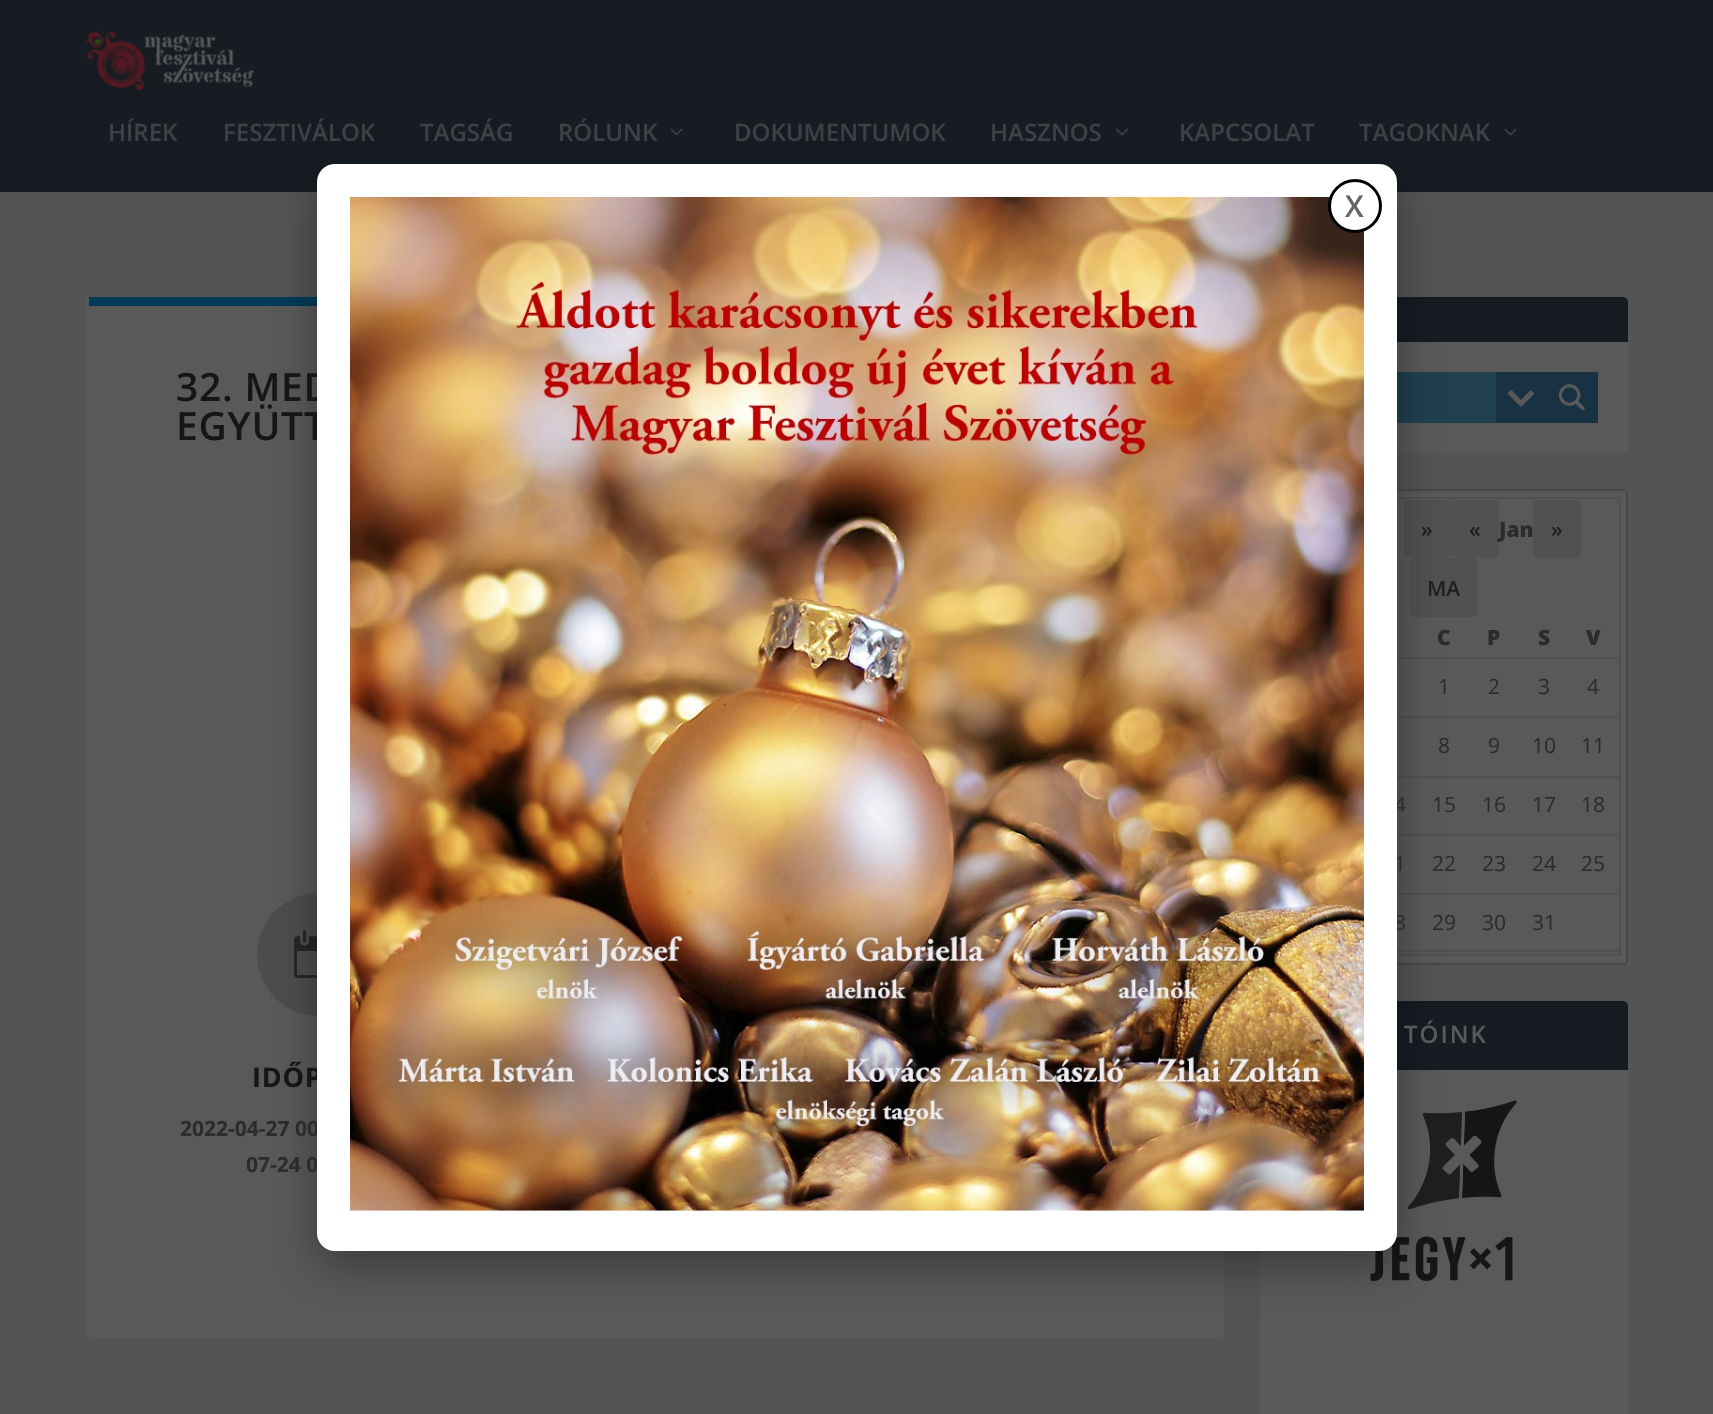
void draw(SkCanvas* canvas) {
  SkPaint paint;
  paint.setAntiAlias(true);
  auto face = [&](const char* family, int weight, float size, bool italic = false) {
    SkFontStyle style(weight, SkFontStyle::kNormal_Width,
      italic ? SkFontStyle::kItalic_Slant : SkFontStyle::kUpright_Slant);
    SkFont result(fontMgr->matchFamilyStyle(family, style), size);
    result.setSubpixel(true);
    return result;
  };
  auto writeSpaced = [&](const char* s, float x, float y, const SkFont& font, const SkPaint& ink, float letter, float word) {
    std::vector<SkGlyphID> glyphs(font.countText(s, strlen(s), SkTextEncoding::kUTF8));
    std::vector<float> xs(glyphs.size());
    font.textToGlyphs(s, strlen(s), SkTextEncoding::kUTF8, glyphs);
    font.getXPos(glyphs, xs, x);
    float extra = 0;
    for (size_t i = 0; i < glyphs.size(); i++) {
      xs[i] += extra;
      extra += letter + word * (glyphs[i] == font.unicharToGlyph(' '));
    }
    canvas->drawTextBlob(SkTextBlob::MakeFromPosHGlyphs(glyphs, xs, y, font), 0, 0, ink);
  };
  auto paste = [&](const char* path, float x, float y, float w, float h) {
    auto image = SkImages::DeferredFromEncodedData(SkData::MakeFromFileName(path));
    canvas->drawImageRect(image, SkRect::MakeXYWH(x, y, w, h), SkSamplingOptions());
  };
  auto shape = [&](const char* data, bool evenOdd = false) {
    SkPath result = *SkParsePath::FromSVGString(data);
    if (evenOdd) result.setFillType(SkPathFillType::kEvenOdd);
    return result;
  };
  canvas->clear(0xff535456);
  paint.setColor(0xff161c22);
  canvas->drawRect(SkRect::MakeXYWH(0, 0, 1713, 192), paint);
  paste("img/1.png", 85, 30, 169, 61);
  paste("img/2.png", 670, 128, 13, 8);
  paste("img/3.png", 1116, 128, 12, 8);
  paste("img/2.png", 1504, 128, 13, 8);
  paint.setColor(0xff595959);
  canvas->drawRoundRect(SkRect::MakeXYWH(86, 297, 1138, 1041), 5, 5, paint);
  paint.setColor(0xff003b59);
  canvas->drawRect(SkRect::MakeXYWH(89, 297, 228, 9), paint);
  paint.setColor(0xff4d4d4d);
  canvas->drawCircle(318.5f, 954.5f, 61.5f, paint);
  paste("img/4.png", 294, 930, 23, 48);
  paint.setColor(0xff595959);
  canvas->drawRoundRect(SkRect::MakeXYWH(1260, 297, 368, 156), 5, 5, paint);
  paint.setColor(0xff161c22);
  canvas->drawPath(shape("M1265 297H1623C1626 297 1628 299 1628 302V342H1260V302C1260 299 1262 297 1265 297Z"), paint);
  paint.setColor(0xff20404f);
  canvas->drawRect(SkRect::MakeXYWH(1397, 372, 99, 51), paint);
  paint.setColor(0xff193243);
  canvas->drawRect(SkRect::MakeXYWH(1496, 372, 102, 51), paint);
  paint.setColor(0xff595959);
  canvas->drawPath(shape("M1530.5 390L1534.5 393.5L1521 407L1507.5 393.5L1511.5 390L1521 400Z"), paint);
  paste("img/5.png", 1558, 384, 28, 27);
  canvas->drawRoundRect(SkRect::MakeXYWH(1260, 489, 368, 476), 5, 5, paint);
  paint.setColor(0xff474747);
  canvas->drawPath(shape("M1265 489C1262 489 1260 491 1260 494V960C1260 963 1262 965 1265 965H1623C1626 965 1628 963 1628 960V494C1628 491 1626 489 1623 489ZM1262 491V963H1626V491Z", true), paint);
  {
    const struct { float x, y, w, h; SkColor color; } items[] = {
      {1397, 497, 223, 2, 0xff505050},
      {1619, 497, 2, 459, 0xff505050},
      {1397, 954, 223, 2, 0xff505050},
    };
    for (auto [x, y, w, h, color] : items) {
      paint.setColor(color);
      canvas->drawRect(SkRect::MakeXYWH(x, y, w, h), paint);
    }
  }
  paint.setColor(0xff515151);
  canvas->drawRoundRect(SkRect::MakeXYWH(1404, 500, 47, 58), 5, 5, paint);
  canvas->drawRoundRect(SkRect::MakeXYWH(1451, 500, 48, 58), 5, 5, paint);
  canvas->drawRoundRect(SkRect::MakeXYWH(1533, 500, 48, 58), 5, 5, paint);
  canvas->drawRoundRect(SkRect::MakeXYWH(1409, 558, 69, 59), 5, 5, paint);
  {
    const struct { float x, y, w, h; SkColor color; } items[] = {
      {1397, 657, 223, 2, 0xff505050},
      {1397, 716, 223, 2, 0xff505050},
      {1397, 776, 223, 2, 0xff505050},
      {1397, 834, 223, 2, 0xff505050},
      {1397, 893, 223, 2, 0xff505050},
      {1397, 950, 223, 2, 0xff505050},
    };
    for (auto [x, y, w, h, color] : items) {
      paint.setColor(color);
      canvas->drawRect(SkRect::MakeXYWH(x, y, w, h), paint);
    }
  }
  paint.setColor(0xff595959);
  canvas->drawRoundRect(SkRect::MakeXYWH(1260, 1001, 368, 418), 5, 5, paint);
  paint.setColor(0xff161c22);
  canvas->drawPath(shape("M1265 1001H1623C1626 1001 1628 1003 1628 1006V1070H1260V1006C1260 1003 1262 1001 1265 1001Z"), paint);
  paste("img/6.png", 1370, 1100, 147, 181);
  paint.setColor(0x59000000);
  paint.setMaskFilter(SkMaskFilter::MakeBlur(kNormal_SkBlurStyle, 22.5f));
  canvas->drawRoundRect(SkRect::MakeXYWH(317, 179, 1080, 1087), 18, 18, paint);
  paint.setMaskFilter(nullptr);
  auto f0 = face("Open Sans", 600, 24);
  paint.setColor(0xff3e4143);
  {
    const struct { const char* s; float x, y; } items[] = {
      {"HÍREK", 108, 141},
      {"FESZTIVÁLOK", 223, 141},
      {"TAGSÁG", 420, 141},
      {"RÓLUNK", 558, 141},
      {"DOKUMENTUMOK", 734, 141},
      {"HASZNOS", 990, 141},
      {"KAPCSOLAT", 1179, 141},
      {"TAGOKNAK", 1359, 141},
    };
    for (auto [s, x, y] : items) {
      canvas->drawString(s, x, y, f0, paint);
    }
  }
  auto f1 = face("Open Sans", 600, 39);
  paint.setColor(0xff161616);
  writeSpaced("32. MED", 176, 401, f1, paint, 0.75f, 0);
  writeSpaced("EGYÜTT", 176, 440, f1, paint, 0.75f, 0);
  auto f2 = face("Open Sans", 700, 27);
  writeSpaced("IDŐP", 252, 1087, f2, paint, 0.75f, 0);
  auto f3 = face("Open Sans", 700, 21);
  paint.setColor(0xff2c2c2c);
  canvas->drawString("2022-04-27 00", 180, 1136, f3, paint);
  canvas->drawString("07-24 0", 246, 1172, f3, paint);
  auto f4 = face("Open Sans", 600, 21);
  paint.setColor(0xff202020);
  canvas->drawString("»", 1421, 537, f4, paint);
  canvas->drawString("«", 1469, 537, f4, paint);
  auto f5 = face("Open Sans", 800, 21);
  paint.setColor(0xff2c2c2c);
  canvas->drawString("Jan", 1499, 537, f5, paint);
  paint.setColor(0xff202020);
  canvas->drawString("»", 1551, 537, f4, paint);
  canvas->drawString("MA", 1427, 596, f4, paint);
  paint.setColor(0xff2c2c2c);
  {
    const struct { const char* s; float x, y; } items[] = {
      {"C", 1437, 645},
      {"P", 1487, 645},
      {"S", 1538, 645},
      {"V", 1586, 645},
    };
    for (auto [s, x, y] : items) {
      canvas->drawString(s, x, y, f5, paint);
    }
  }
  auto f6 = face("Open Sans", 400, 21);
  {
    const struct { const char* s; float x, y; } items[] = {
      {"1", 1438, 694},
      {"2", 1488, 694},
      {"3", 1538, 694},
      {"4", 1587, 694},
      {"8", 1438, 753},
      {"9", 1488, 753},
      {"10", 1532, 753},
      {"11", 1581, 753},
      {"4", 1394, 812},
      {"15", 1432, 812},
      {"16", 1482, 812},
      {"17", 1532, 812},
      {"18", 1581, 812},
      {"1", 1394, 871},
      {"22", 1432, 871},
      {"23", 1482, 871},
      {"24", 1532, 871},
      {"25", 1581, 871},
      {"8", 1394, 930},
      {"29", 1432, 930},
      {"30", 1482, 930},
      {"31", 1532, 930},
    };
    for (auto [s, x, y] : items) {
      canvas->drawString(s, x, y, f6, paint);
    }
  }
  paint.setColor(0xff595959);
  writeSpaced("TÓINK", 1404, 1043, f0, paint, 2, 0);
  paint.setColor(0xffffffff);
  canvas->drawRoundRect(SkRect::MakeXYWH(317, 164, 1080, 1087), 18, 18, paint);
  paste("img/7.png", 350, 197, 1014, 1014);
  canvas->drawCircle(1355, 206, 25.5f, paint);
  paint.setStroke(true);
  paint.setStrokeWidth(3);
  paint.setColor(0xff000000);
  canvas->drawCircle(1355, 206, 25.5f, paint);
  auto f7 = face("Open Sans", 600, 30);
  paint.setStroke(false);
  paint.setColor(0xff666666);
  canvas->drawString("X", 1345, 217, f7, paint);
}
